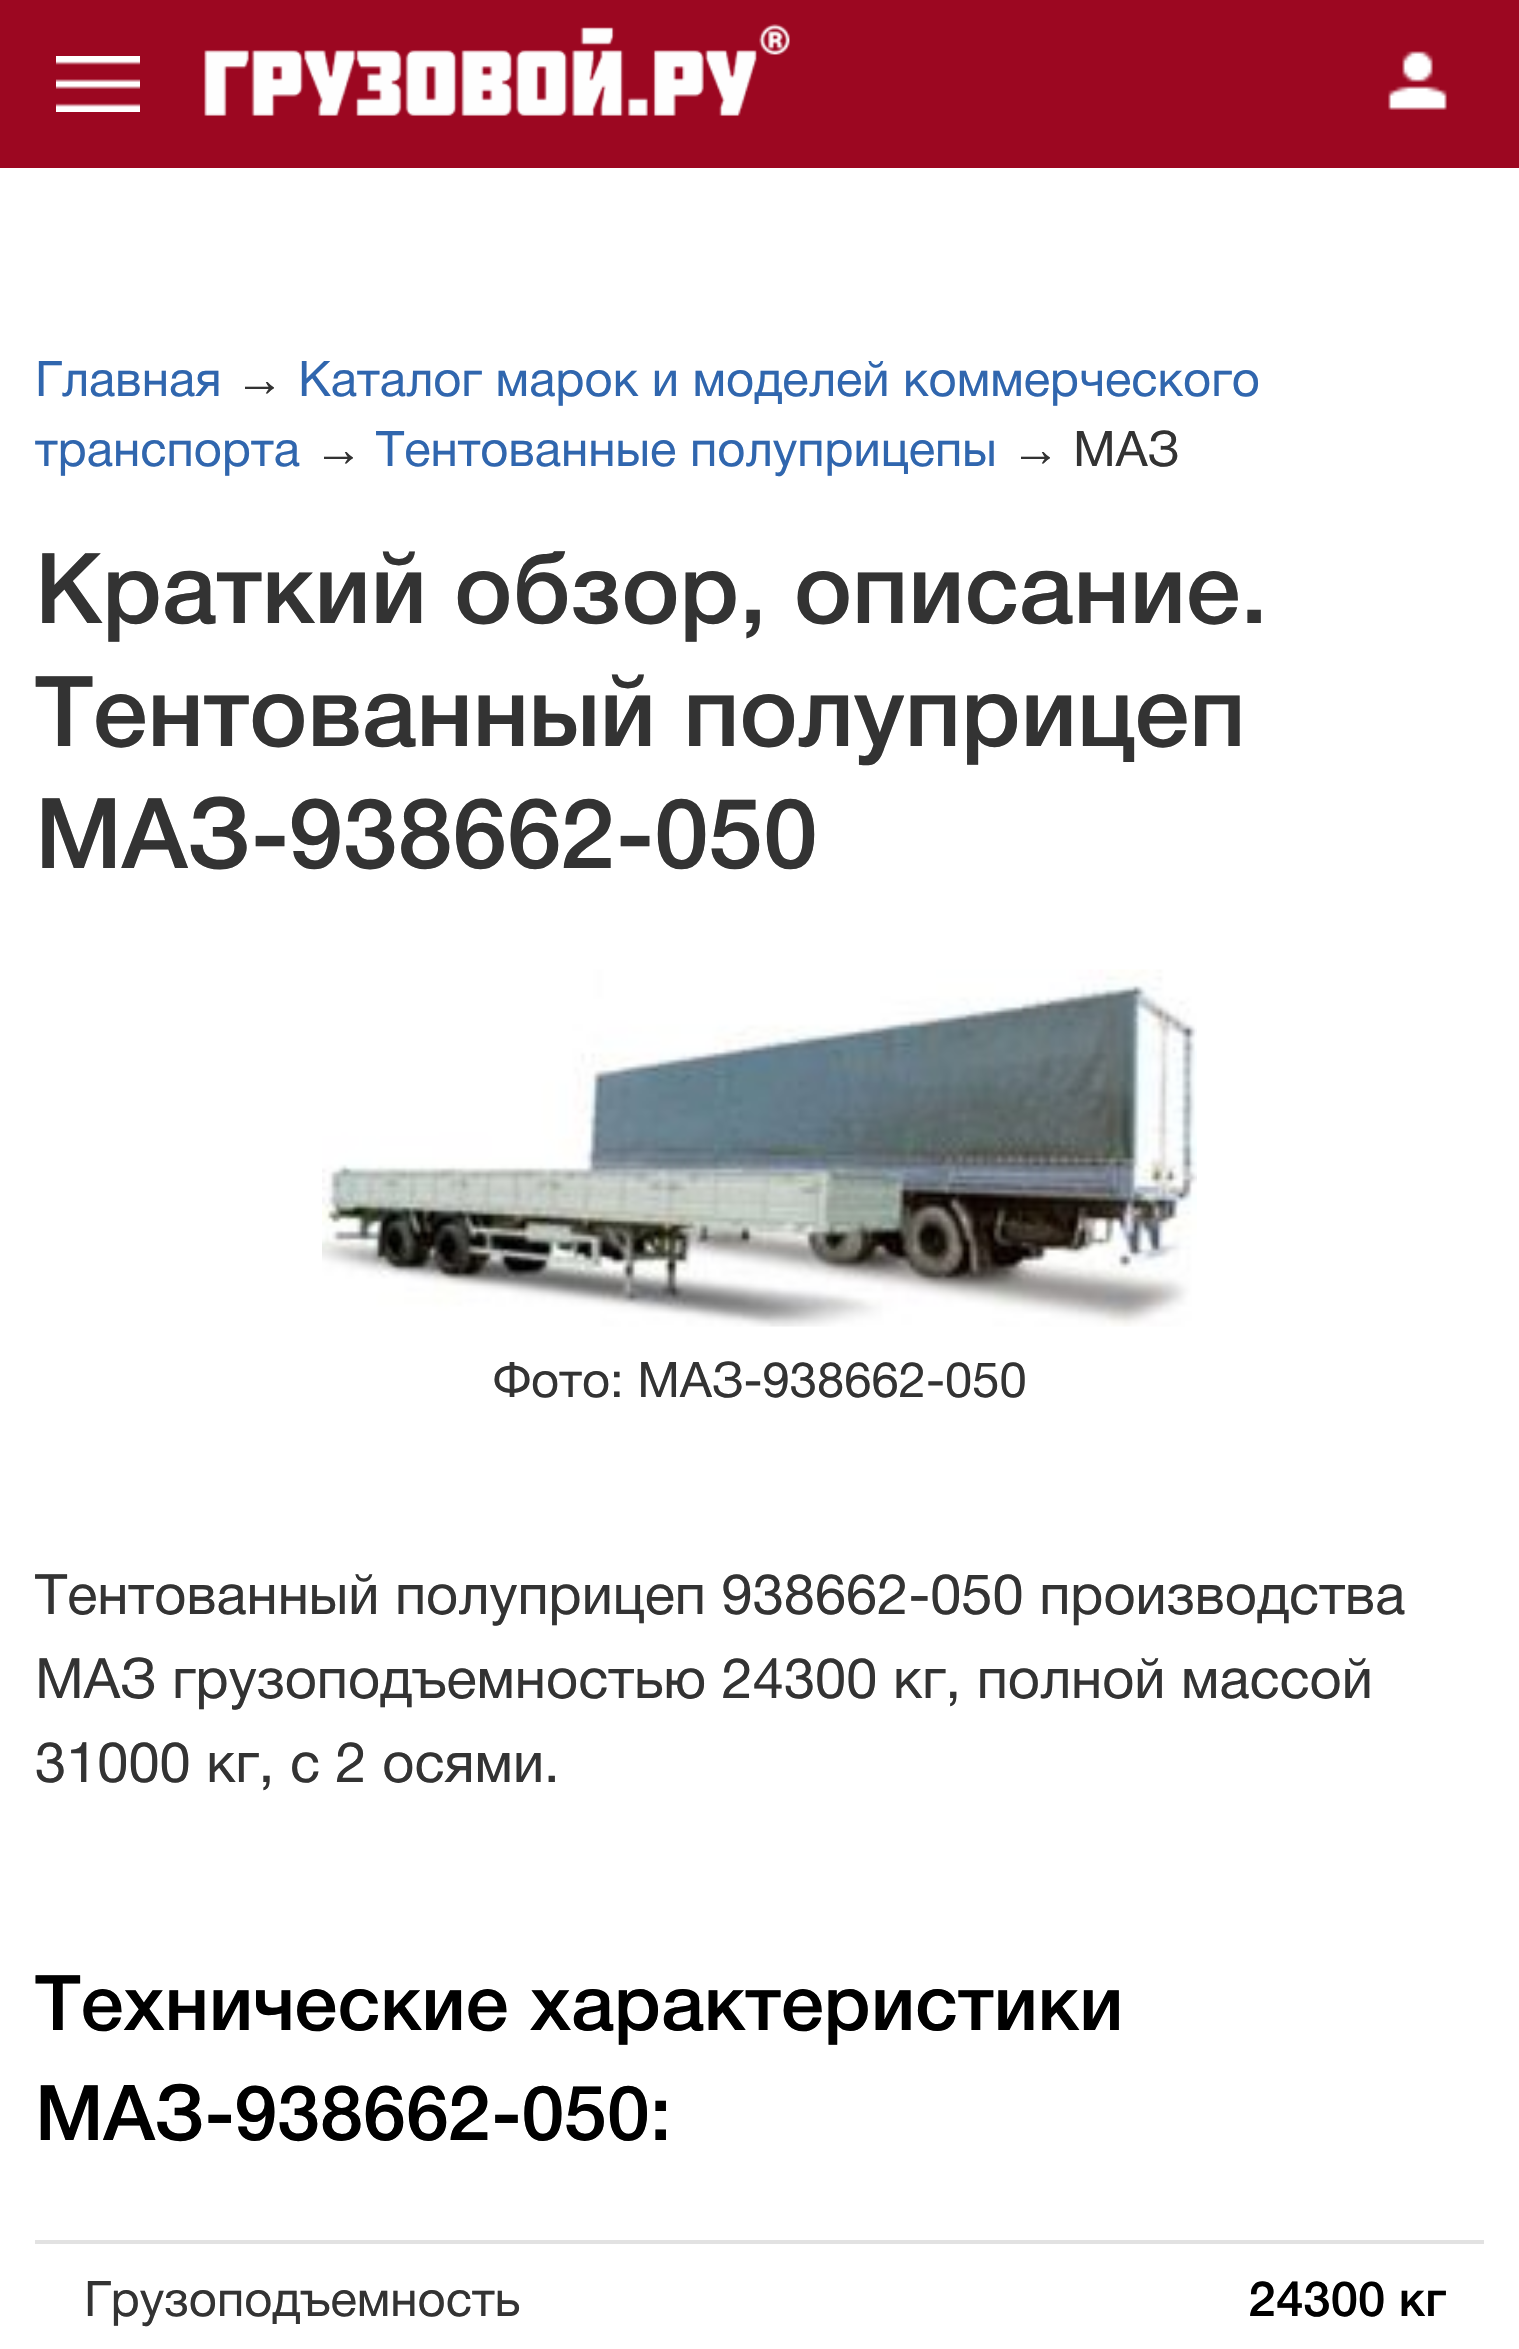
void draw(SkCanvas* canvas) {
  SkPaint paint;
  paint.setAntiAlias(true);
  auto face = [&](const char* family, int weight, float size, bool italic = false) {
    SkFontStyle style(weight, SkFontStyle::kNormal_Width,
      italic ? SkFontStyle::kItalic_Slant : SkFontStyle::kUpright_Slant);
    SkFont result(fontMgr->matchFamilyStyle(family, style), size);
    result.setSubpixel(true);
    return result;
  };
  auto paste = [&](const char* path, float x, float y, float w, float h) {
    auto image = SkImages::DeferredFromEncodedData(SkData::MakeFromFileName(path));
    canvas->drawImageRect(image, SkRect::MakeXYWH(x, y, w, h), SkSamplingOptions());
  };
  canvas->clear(0xffffffff);
  paint.setColor(0xff9c0721);
  canvas->drawRect(SkRect::MakeXYWH(0, 0, 1519, 168), paint);
  paste("img/1.png", 56, 56, 84, 56);
  paste("img/2.png", 204, 24, 586, 92);
  paste("img/3.png", 1388, 51, 59, 59);
  paste("img/4.png", 322, 969, 875, 358);
  paint.setColor(0xffe2e2e2);
  canvas->drawRect(SkRect::MakeXYWH(35, 2240, 1449, 4), paint);
  auto f0 = face("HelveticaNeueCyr", 400, 49);
  paint.setColor(0xff3066ae);
  canvas->drawString("Главная", 35, 396, f0, paint);
  auto f1 = face("Liberation Sans", 400, 49);
  paint.setColor(0xff333333);
  canvas->drawString("→", 235, 396, f1, paint);
  paint.setColor(0xff3066ae);
  canvas->drawString("Каталог марок и моделей коммерческого", 298, 396, f0, paint);
  canvas->drawString("транспорта", 35, 466, f0, paint);
  paint.setColor(0xff333333);
  canvas->drawString("→", 314, 466, f1, paint);
  paint.setColor(0xff3066ae);
  canvas->drawString("Тентованные полуприцепы", 376, 466, f0, paint);
  paint.setColor(0xff333333);
  canvas->drawString("→", 1011, 466, f1, paint);
  canvas->drawString("МАЗ", 1073, 466, f0, paint);
  auto f2 = face("HelveticaNeueCyr", 500, 98);
  {
    const struct { const char* s; float x, y; } items[] = {
      {"Краткий обзор, описание.", 35, 623},
      {"Тентованный полуприцеп", 35, 746},
      {"МАЗ-938662-050", 35, 868},
    };
    for (auto [s, x, y] : items) {
      canvas->drawString(s, x, y, f2, paint);
    }
  }
  canvas->drawString("Фото: МАЗ-938662-050", 493, 1397, f0, paint);
  auto f3 = face("HelveticaNeueCyr", 400, 56);
  {
    const struct { const char* s; float x, y; } items[] = {
      {"Тентованный полуприцеп 938662-050 производства", 35, 1614},
      {"МАЗ грузоподъемностью 24300 кг, полной массой", 35, 1698},
      {"31000 кг, с 2 осями.", 35, 1782},
    };
    for (auto [s, x, y] : items) {
      canvas->drawString(s, x, y, f3, paint);
    }
  }
  auto f4 = face("HelveticaNeueCyr", 500, 77);
  paint.setColor(0xff000000);
  canvas->drawString("Технические характеристики", 35, 2030, f4, paint);
  canvas->drawString("МАЗ-938662-050:", 35, 2140, f4, paint);
  paint.setColor(0xff333333);
  canvas->drawString("Грузоподъемность", 84, 2316, f0, paint);
  auto f5 = face("HelveticaNeueCyr", 500, 49);
  paint.setColor(0xff000000);
  canvas->drawString("24300 кг", 1249, 2316, f5, paint);
}
